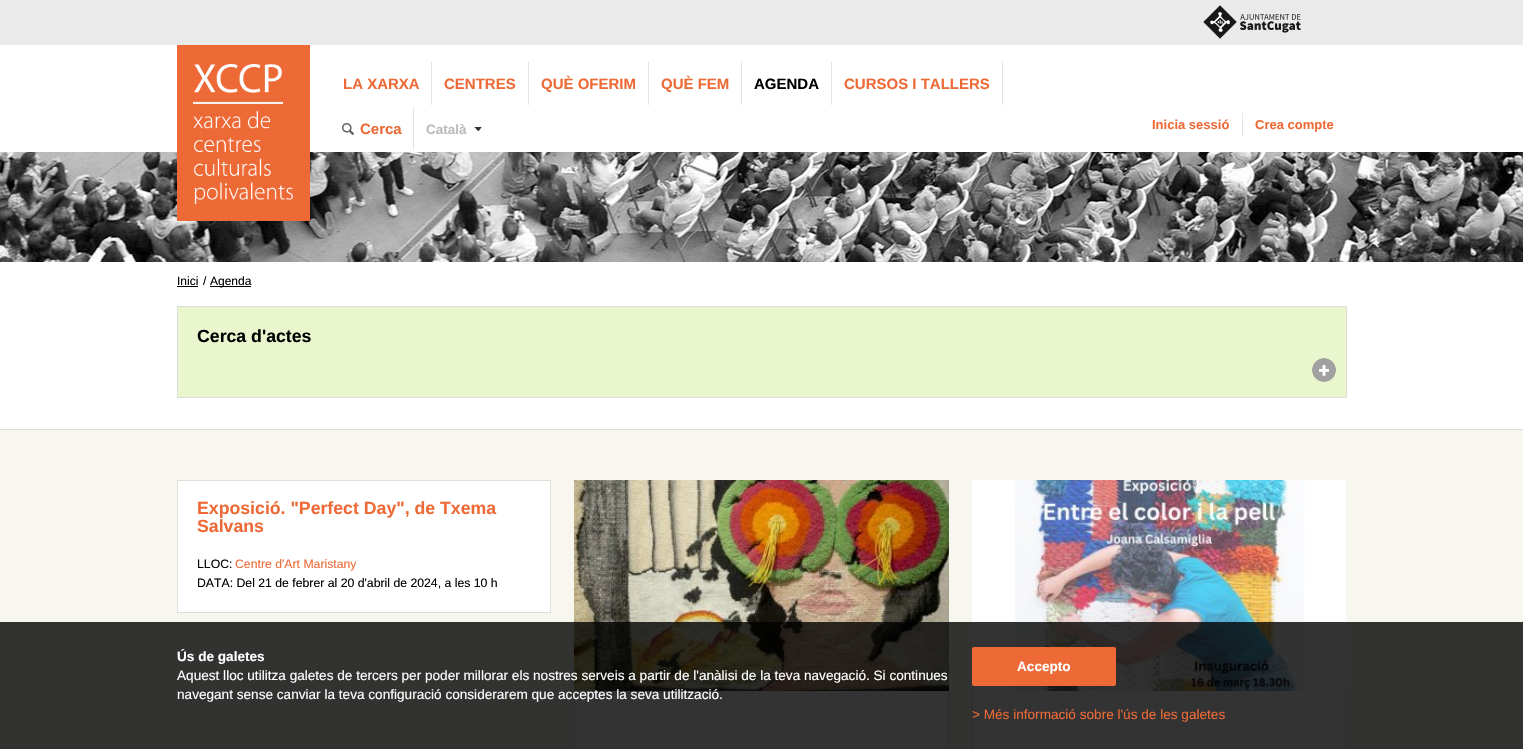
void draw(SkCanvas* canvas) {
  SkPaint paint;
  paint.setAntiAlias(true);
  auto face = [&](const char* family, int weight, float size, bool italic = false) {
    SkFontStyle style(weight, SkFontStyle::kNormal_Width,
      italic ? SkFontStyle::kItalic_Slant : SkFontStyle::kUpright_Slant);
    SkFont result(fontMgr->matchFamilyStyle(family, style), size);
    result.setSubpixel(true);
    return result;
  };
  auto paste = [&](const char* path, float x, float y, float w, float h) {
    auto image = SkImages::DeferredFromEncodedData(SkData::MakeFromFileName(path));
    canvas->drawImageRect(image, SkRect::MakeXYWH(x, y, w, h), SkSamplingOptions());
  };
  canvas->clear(0xffffffff);
  paint.setColor(0xffeaeaea);
  canvas->drawRect(SkRect::MakeXYWH(0, 0, 1523, 45), paint);
  paste("img/1.png", 1203, 5, 98, 34);
  paste("img/5.png", 0, 152, 1523, 110);
  paint.setColor(0xffed6a37);
  canvas->drawRect(SkRect::MakeXYWH(177, 45, 133, 176), paint);
  paste("img/2.png", 193, 64, 100, 140);
  {
    const struct { float x, y, w, h; SkColor color; } items[] = {
      {431, 62, 1, 43, 0xffe5e5e5},
      {528, 62, 1, 43, 0xffe5e5e5},
      {648, 62, 1, 43, 0xffe5e5e5},
      {741, 62, 1, 43, 0xffe5e5e5},
      {831, 62, 1, 43, 0xffe5e5e5},
      {1002, 62, 1, 43, 0xffe5e5e5},
    };
    for (auto [x, y, w, h, color] : items) {
      paint.setColor(color);
      canvas->drawRect(SkRect::MakeXYWH(x, y, w, h), paint);
    }
  }
  paste("img/3.png", 342, 123, 16, 12);
  canvas->drawRect(SkRect::MakeXYWH(413, 107, 1, 43), paint);
  paste("img/4.png", 474, 127, 8, 4);
  {
    const struct { float x, y, w, h; SkColor color; } items[] = {
      {1242, 113, 1, 23, 0xffe5e5e5},
      {177, 286, 21, 1, 0xff000000},
      {210, 286, 41, 1, 0xff000000},
    };
    for (auto [x, y, w, h, color] : items) {
      paint.setColor(color);
      canvas->drawRect(SkRect::MakeXYWH(x, y, w, h), paint);
    }
  }
  paint.setColor(0xffeaf6ce);
  canvas->drawRect(SkRect::MakeXYWH(177.5f, 306.5f, 1169, 91), paint);
  paint.setStroke(true);
  paint.setStrokeWidth(1);
  paint.setColor(0xffddded9);
  canvas->drawRect(SkRect::MakeXYWH(177.5f, 306.5f, 1169, 91), paint);
  paste("img/6.png", 1312, 358, 24, 24);
  paint.setStroke(false);
  paint.setColor(0xfff7f7ef);
  canvas->drawRect(SkRect::MakeXYWH(0, 430, 1523, 319), paint);
  paint.setColor(0xffddded9);
  canvas->drawRect(SkRect::MakeXYWH(0, 429, 1523, 1), paint);
  paint.setColor(0xffffffff);
  canvas->drawRect(SkRect::MakeXYWH(177.5f, 480.5f, 373, 132), paint);
  paint.setStroke(true);
  paint.setColor(0xffddded9);
  canvas->drawRect(SkRect::MakeXYWH(177.5f, 480.5f, 373, 132), paint);
  paste("img/7.png", 574, 480, 375, 211);
  paint.setStroke(false);
  {
    const struct { float x, y, w, h; SkColor color; } items[] = {
      {575, 691, 373, 58, 0xffffffff},
      {948, 691, 1, 58, 0xffddded9},
      {574, 691, 1, 58, 0xffddded9},
    };
    for (auto [x, y, w, h, color] : items) {
      paint.setColor(color);
      canvas->drawRect(SkRect::MakeXYWH(x, y, w, h), paint);
    }
  }
  paste("img/8.png", 972, 480, 374, 211);
  {
    const struct { float x, y, w, h; SkColor color; } items[] = {
      {973, 691, 372, 58, 0xffffffff},
      {1345, 691, 1, 58, 0xffddded9},
      {972, 691, 1, 58, 0xffddded9},
      {0, 622, 1523, 127, 0xcc000000},
    };
    for (auto [x, y, w, h, color] : items) {
      paint.setColor(color);
      canvas->drawRect(SkRect::MakeXYWH(x, y, w, h), paint);
    }
  }
  paint.setColor(0xffed6a37);
  canvas->drawRoundRect(SkRect::MakeXYWH(972, 647, 144, 39), 2, 2, paint);
  auto f0 = face("Liberation Sans", 700, 15);
  {
    const struct { const char* s; float x, y; } items[] = {
      {"LA XARXA", 343, 89},
      {"CENTRES", 444, 89},
      {"QUÈ OFERIM", 541, 89},
      {"QUÈ FEM", 661, 89},
    };
    for (auto [s, x, y] : items) {
      canvas->drawString(s, x, y, f0, paint);
    }
  }
  paint.setColor(0xff000000);
  canvas->drawString("AGENDA", 754, 89, f0, paint);
  paint.setColor(0xffed6a37);
  canvas->drawString("CURSOS I TALLERS", 844, 89, f0, paint);
  canvas->drawString("Cerca", 360, 134, f0, paint);
  auto f1 = face("Liberation Sans", 700, 13.5f);
  paint.setColor(0xffbbbbbb);
  canvas->drawString("Català", 426, 134, f1, paint);
  auto f2 = face("Liberation Sans", 700, 13);
  paint.setColor(0xffed6a37);
  canvas->drawString("Inicia sessió", 1152, 129, f2, paint);
  canvas->drawString("Crea compte", 1255, 129, f2, paint);
  auto f3 = face("Liberation Sans", 400, 12);
  paint.setColor(0xff000000);
  {
    const struct { const char* s; float x, y; } items[] = {
      {"Inici", 177, 285},
      {"/", 203, 285},
      {"Agenda", 210, 285},
    };
    for (auto [s, x, y] : items) {
      canvas->drawString(s, x, y, f3, paint);
    }
  }
  auto f4 = face("Liberation Sans", 700, 17.7f);
  canvas->drawString("Cerca d'actes", 197, 342, f4, paint);
  paint.setColor(0xffed6a37);
  canvas->drawString("Exposició. \"Perfect Day\", de Txema", 197, 514, f4, paint);
  canvas->drawString("Salvans", 197, 532, f4, paint);
  auto f5 = face("Liberation Sans", 400, 12.25f);
  paint.setColor(0xff000000);
  canvas->drawString("LLOC:", 197, 568, f5, paint);
  paint.setColor(0xffed6a37);
  canvas->drawString("Centre d'Art Maristany", 235, 568, f5, paint);
  paint.setColor(0xff000000);
  canvas->drawString("DATA: Del 21 de febrer al 20 d'abril de 2024, a les 10 h", 197, 587, f5, paint);
  auto f6 = face("Liberation Sans", 700, 13.6f);
  paint.setColor(0xffffffff);
  canvas->drawString("Ús de galetes", 177, 661, f6, paint);
  auto f7 = face("Liberation Sans", 400, 13.6f);
  canvas->drawString("Aquest lloc utilitza galetes de tercers per poder millorar els nostres serveis a partir de l'anàlisi de la teva navegació. Si continues", 177, 680, f7, paint);
  canvas->drawString("navegant sense canviar la teva configuració considerarem que acceptes la seva utilització.", 177, 699, f7, paint);
  canvas->drawString("Accepto", 1017, 671, f6, paint);
  paint.setColor(0xffed6a37);
  canvas->drawString("> Més informació sobre l'ús de les galetes", 972, 719, f7, paint);
}
